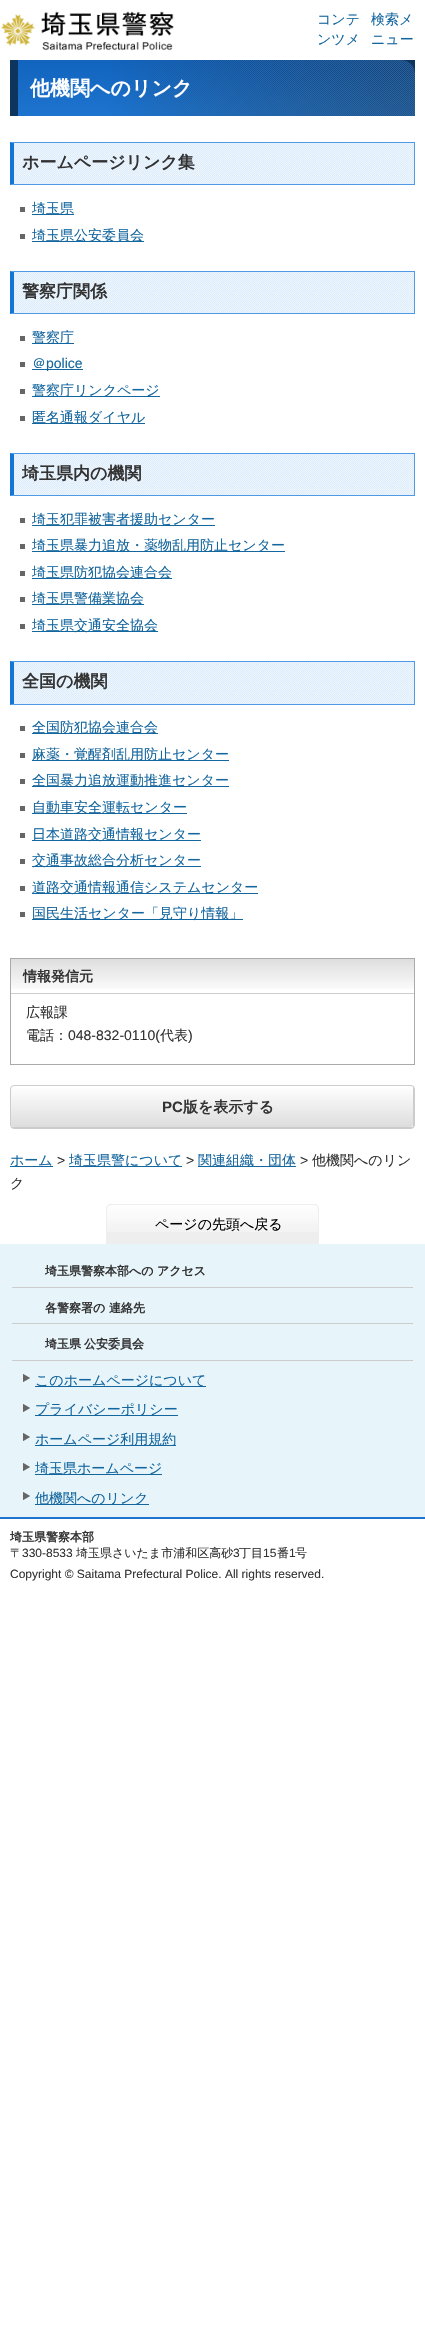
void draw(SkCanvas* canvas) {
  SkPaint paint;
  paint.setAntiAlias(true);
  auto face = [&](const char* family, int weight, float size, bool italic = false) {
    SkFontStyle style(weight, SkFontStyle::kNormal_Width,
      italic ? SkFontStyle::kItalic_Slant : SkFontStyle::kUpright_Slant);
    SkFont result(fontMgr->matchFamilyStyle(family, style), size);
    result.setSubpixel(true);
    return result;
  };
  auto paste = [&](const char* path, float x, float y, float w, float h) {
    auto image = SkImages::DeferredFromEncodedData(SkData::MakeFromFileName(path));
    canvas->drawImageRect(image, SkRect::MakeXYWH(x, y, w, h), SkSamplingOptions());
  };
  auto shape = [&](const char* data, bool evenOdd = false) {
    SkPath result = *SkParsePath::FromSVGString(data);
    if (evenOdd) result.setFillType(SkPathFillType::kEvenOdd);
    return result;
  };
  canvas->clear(0xffffffff);
  paste("img/1.png", 1, 11, 173, 40);
  paint.setColor(0xff0d355e);
  canvas->drawRect(SkRect::MakeXYWH(402, 60, 13, 13), paint);
  paste("img/2.png", 18, 60, 397, 56);
  canvas->drawRect(SkRect::MakeXYWH(10, 60, 8, 56), paint);
  paste("img/3.png", 10, 142, 404, 43);
  paint.setColor(0xff4f9ae6);
  canvas->drawPath(shape("M10 142H415L414 143H14Z"), paint);
  canvas->drawRect(SkRect::MakeXYWH(414, 142, 1, 43), paint);
  canvas->drawPath(shape("M415 185H10L14 184H414Z"), paint);
  paint.setColor(0xff1475d6);
  canvas->drawPath(shape("M10 185V142L14 143V184Z"), paint);
  {
    const struct { float x, y, w, h; SkColor color; } items[] = {
      {20, 207, 5, 5, 0xff666666},
      {32, 214, 42, 1, 0xff14669e},
      {20, 234, 5, 5, 0xff666666},
      {32, 241, 112, 1, 0xff14669e},
    };
    for (auto [x, y, w, h, color] : items) {
      paint.setColor(color);
      canvas->drawRect(SkRect::MakeXYWH(x, y, w, h), paint);
    }
  }
  paste("img/3.png", 10, 271, 404, 43);
  paint.setColor(0xff4f9ae6);
  canvas->drawPath(shape("M10 271H415L414 272H14Z"), paint);
  canvas->drawRect(SkRect::MakeXYWH(414, 271, 1, 43), paint);
  canvas->drawPath(shape("M415 314H10L14 313H414Z"), paint);
  paint.setColor(0xff1475d6);
  canvas->drawPath(shape("M10 314V271L14 272V313Z"), paint);
  {
    const struct { float x, y, w, h; SkColor color; } items[] = {
      {20, 336, 5, 5, 0xff666666},
      {32, 343, 42, 1, 0xff14669e},
      {20, 362, 5, 5, 0xff666666},
      {32, 369, 51, 1, 0xff14669e},
      {20, 389, 5, 5, 0xff666666},
      {32, 396, 128, 1, 0xff14669e},
      {20, 416, 5, 5, 0xff666666},
      {32, 423, 113, 1, 0xff14669e},
    };
    for (auto [x, y, w, h, color] : items) {
      paint.setColor(color);
      canvas->drawRect(SkRect::MakeXYWH(x, y, w, h), paint);
    }
  }
  paste("img/3.png", 10, 453, 404, 43);
  paint.setColor(0xff4f9ae6);
  canvas->drawPath(shape("M10 453H415L414 454H14Z"), paint);
  canvas->drawRect(SkRect::MakeXYWH(414, 453, 1, 43), paint);
  canvas->drawPath(shape("M415 496H10L14 495H414Z"), paint);
  paint.setColor(0xff1475d6);
  canvas->drawPath(shape("M10 496V453L14 454V495Z"), paint);
  {
    const struct { float x, y, w, h; SkColor color; } items[] = {
      {20, 518, 5, 5, 0xff666666},
      {32, 525, 183, 1, 0xff14669e},
      {20, 544, 5, 5, 0xff666666},
      {32, 551, 253, 1, 0xff14669e},
      {20, 571, 5, 5, 0xff666666},
      {32, 578, 140, 1, 0xff14669e},
      {20, 597, 5, 5, 0xff666666},
      {32, 604, 112, 1, 0xff14669e},
      {20, 624, 5, 5, 0xff666666},
      {32, 631, 126, 1, 0xff14669e},
    };
    for (auto [x, y, w, h, color] : items) {
      paint.setColor(color);
      canvas->drawRect(SkRect::MakeXYWH(x, y, w, h), paint);
    }
  }
  paste("img/4.png", 10, 661, 404, 44);
  paint.setColor(0xff4f9ae6);
  canvas->drawPath(shape("M10 661H415L414 662H14Z"), paint);
  canvas->drawRect(SkRect::MakeXYWH(414, 661, 1, 44), paint);
  canvas->drawPath(shape("M415 705H10L14 704H414Z"), paint);
  paint.setColor(0xff1475d6);
  canvas->drawPath(shape("M10 705V661L14 662V704Z"), paint);
  {
    const struct { float x, y, w, h; SkColor color; } items[] = {
      {20, 726, 5, 5, 0xff666666},
      {32, 733, 126, 1, 0xff14669e},
      {20, 753, 5, 5, 0xff666666},
      {32, 760, 197, 1, 0xff14669e},
      {20, 779, 5, 5, 0xff666666},
      {32, 786, 197, 1, 0xff14669e},
      {20, 806, 5, 5, 0xff666666},
      {32, 813, 155, 1, 0xff14669e},
      {20, 833, 5, 5, 0xff666666},
      {32, 840, 169, 1, 0xff14669e},
      {20, 859, 5, 5, 0xff666666},
      {32, 866, 169, 1, 0xff14669e},
      {20, 886, 5, 5, 0xff666666},
      {32, 893, 226, 1, 0xff14669e},
      {20, 912, 5, 5, 0xff666666},
      {32, 919, 211, 1, 0xff14669e},
    };
    for (auto [x, y, w, h, color] : items) {
      paint.setColor(color);
      canvas->drawRect(SkRect::MakeXYWH(x, y, w, h), paint);
    }
  }
  paint.setStroke(true);
  paint.setStrokeWidth(1);
  paint.setColor(0xffaaaaaa);
  canvas->drawRect(SkRect::MakeXYWH(10.5f, 958.5f, 404, 106), paint);
  paste("img/5.png", 11, 959, 403, 30);
  paint.setStroke(false);
  paint.setColor(0xffcccccc);
  canvas->drawRect(SkRect::MakeXYWH(11, 993, 403, 1), paint);
  {
    const SkColor colors[] = {0xffffffff, 0xffdddddd};
    const float stops[] = {0, 1};
    const SkPoint ends[] = {{212, 1086}, {212, 1127}};
    paint.setShader(SkGradientShader::MakeLinear(ends, colors, stops, 2, SkTileMode::kClamp));
    paint.setAlpha(255);
  }
  canvas->drawPath(shape("M14 1086H411C412 1086 413 1087 413 1089V1125C413 1126 412 1127 411 1127H14C12 1127 11 1126 11 1125V1089C11 1087 12 1086 14 1086Z"), paint);
  paint.setStroke(true);
  paint.setShader(nullptr);
  paint.setColor(0xffcccccc);
  canvas->drawRoundRect(SkRect::MakeXYWH(10.5f, 1085.5f, 404, 43), 3.5f, 3.5f, paint);
  paint.setStroke(false);
  {
    const struct { float x, y, w, h; SkColor color; } items[] = {
      {413, 1087, 1, 40, 0xffcccccc},
      {12, 1127, 401, 1, 0xffcccccc},
      {10, 1166, 43, 1, 0xff14669e},
      {69, 1166, 113, 1, 0xff14669e},
      {198, 1166, 98, 1, 0xff14669e},
    };
    for (auto [x, y, w, h, color] : items) {
      paint.setColor(color);
      canvas->drawRect(SkRect::MakeXYWH(x, y, w, h), paint);
    }
  }
  paint.setColor(0xffeeeeee);
  canvas->drawPath(shape("M111 1204H314C317 1204 319 1206 319 1209V1244H106V1209C106 1206 108 1204 111 1204Z"), paint);
  paste("img/6.png", 106, 1205, 213, 27);
  paint.setStroke(true);
  canvas->drawPath(shape("M111 1204.5H314C316.5 1204.5 318.5 1206.5 318.5 1209V1243.5H106.5V1209C106.5 1206.5 108.5 1204.5 111 1204.5Z"), paint);
  paint.setStroke(false);
  {
    const struct { float x, y, w, h; SkColor color; } items[] = {
      {0, 1244, 425, 273, 0xffe7f4fa},
      {12, 1287, 401, 1, 0xffcccccc},
      {12, 1323, 401, 1, 0xffcccccc},
      {12, 1360, 401, 1, 0xffcccccc},
    };
    for (auto [x, y, w, h, color] : items) {
      paint.setColor(color);
      canvas->drawRect(SkRect::MakeXYWH(x, y, w, h), paint);
    }
  }
  paste("img/7.png", 23, 1374, 7, 8);
  paint.setColor(0xff14669e);
  canvas->drawRect(SkRect::MakeXYWH(35, 1386, 171, 1), paint);
  paste("img/7.png", 23, 1404, 7, 8);
  canvas->drawRect(SkRect::MakeXYWH(35, 1415, 143, 1), paint);
  paste("img/7.png", 23, 1433, 7, 8);
  canvas->drawRect(SkRect::MakeXYWH(35, 1445, 141, 1), paint);
  paste("img/7.png", 23, 1463, 7, 8);
  canvas->drawRect(SkRect::MakeXYWH(35, 1474, 127, 1), paint);
  paste("img/7.png", 23, 1492, 7, 8);
  canvas->drawRect(SkRect::MakeXYWH(35, 1504, 114, 1), paint);
  paint.setColor(0xff1d75cd);
  canvas->drawRect(SkRect::MakeXYWH(0, 1517, 425, 2), paint);
  auto f0 = face("WenQuanYi Zen Hei", 500, 14);
  paint.setColor(0xff14669e);
  {
    const struct { const char* s; float x, y; } items[] = {
      {"コンテ", 317, 24},
      {"ンツメ", 317, 44},
      {"検索メ", 371, 24},
      {"ニュー", 371, 44},
    };
    for (auto [s, x, y] : items) {
      canvas->drawString(s, x, y, f0, paint);
    }
  }
  auto f1 = face("WenQuanYi Zen Hei", 700, 20);
  paint.setColor(0xffffffff);
  canvas->drawString("他機関へのリンク", 30, 95, f1, paint);
  auto f2 = face("WenQuanYi Zen Hei", 700, 17);
  paint.setColor(0xff333333);
  canvas->drawString("ホームページリンク集", 22, 168, f2, paint);
  paint.setColor(0xff14669e);
  canvas->drawString("埼玉県", 32, 213, f0, paint);
  canvas->drawString("埼玉県公安委員会", 32, 240, f0, paint);
  paint.setColor(0xff333333);
  canvas->drawString("警察庁関係", 22, 297, f2, paint);
  paint.setColor(0xff14669e);
  canvas->drawString("警察庁", 32, 342, f0, paint);
  canvas->drawString("＠", 32, 368, f0, paint);
  auto f3 = face("Liberation Sans", 400, 14);
  canvas->drawString("police", 46, 368, f3, paint);
  canvas->drawString("警察庁リンクページ", 32, 395, f0, paint);
  canvas->drawString("匿名通報ダイヤル", 32, 422, f0, paint);
  paint.setColor(0xff333333);
  canvas->drawString("埼玉県内の機関", 22, 479, f2, paint);
  paint.setColor(0xff14669e);
  {
    const struct { const char* s; float x, y; } items[] = {
      {"埼玉犯罪被害者援助センター", 32, 524},
      {"埼玉県暴力追放・薬物乱用防止センター", 32, 550},
      {"埼玉県防犯協会連合会", 32, 577},
      {"埼玉県警備業協会", 32, 603},
      {"埼玉県交通安全協会", 32, 630},
    };
    for (auto [s, x, y] : items) {
      canvas->drawString(s, x, y, f0, paint);
    }
  }
  paint.setColor(0xff333333);
  canvas->drawString("全国の機関", 22, 687, f2, paint);
  paint.setColor(0xff14669e);
  {
    const struct { const char* s; float x, y; } items[] = {
      {"全国防犯協会連合会", 32, 732},
      {"麻薬・覚醒剤乱用防止センター", 32, 759},
      {"全国暴力追放運動推進センター", 32, 785},
      {"自動車安全運転センター", 32, 812},
      {"日本道路交通情報センター", 32, 839},
      {"交通事故総合分析センター", 32, 865},
      {"道路交通情報通信システムセンター", 32, 892},
      {"国民生活センター「見守り情報」", 32, 918},
    };
    for (auto [s, x, y] : items) {
      canvas->drawString(s, x, y, f0, paint);
    }
  }
  auto f4 = face("WenQuanYi Zen Hei", 700, 14);
  paint.setColor(0xff333333);
  canvas->drawString("情報発信元", 23, 981, f4, paint);
  canvas->drawString("広報課", 26, 1017, f0, paint);
  canvas->drawString("電話：", 26, 1040, f0, paint);
  canvas->drawString("048-832-0110(", 68, 1040, f3, paint);
  canvas->drawString("代表", 160, 1040, f0, paint);
  canvas->drawString(")", 188, 1040, f3, paint);
  auto f5 = face("Liberation Sans", 700, 15);
  canvas->drawString("PC", 162, 1112, f5, paint);
  auto f6 = face("WenQuanYi Zen Hei", 700, 15);
  canvas->drawString("版を表示する", 183, 1112, f6, paint);
  paint.setColor(0xff14669e);
  canvas->drawString("ホーム", 10, 1165, f0, paint);
  paint.setColor(0xff333333);
  canvas->drawString(">", 57, 1165, f3, paint);
  paint.setColor(0xff14669e);
  canvas->drawString("埼玉県警について", 69, 1165, f0, paint);
  paint.setColor(0xff333333);
  canvas->drawString(">", 186, 1165, f3, paint);
  paint.setColor(0xff14669e);
  canvas->drawString("関連組織・団体", 198, 1165, f0, paint);
  paint.setColor(0xff333333);
  canvas->drawString(">", 300, 1165, f3, paint);
  canvas->drawString("他機関へのリン", 312, 1165, f0, paint);
  canvas->drawString("ク", 10, 1188, f0, paint);
  paint.setColor(0xff000000);
  canvas->drawString("ページの先頭へ戻る", 155, 1229, f0, paint);
  auto f7 = face("WenQuanYi Zen Hei", 700, 12);
  paint.setColor(0xff333333);
  {
    const struct { const char* s; float x, y; } items[] = {
      {"埼玉県警察本部への", 45, 1275},
      {"アクセス", 157, 1275},
      {"各警察署の", 45, 1312},
      {"連絡先", 109, 1312},
      {"埼玉県", 45, 1348},
      {"公安委員会", 84, 1348},
    };
    for (auto [s, x, y] : items) {
      canvas->drawString(s, x, y, f7, paint);
    }
  }
  paint.setColor(0xff14669e);
  {
    const struct { const char* s; float x, y; } items[] = {
      {"このホームページについて", 35, 1385},
      {"プライバシーポリシー", 35, 1414},
      {"ホームページ利用規約", 35, 1444},
      {"埼玉県ホームページ", 35, 1473},
      {"他機関へのリンク", 35, 1503},
    };
    for (auto [s, x, y] : items) {
      canvas->drawString(s, x, y, f0, paint);
    }
  }
  paint.setColor(0xff333333);
  canvas->drawString("埼玉県警察本部", 10, 1541, f7, paint);
  auto f8 = face("WenQuanYi Zen Hei", 500, 12);
  canvas->drawString("〒", 10, 1557, f8, paint);
  auto f9 = face("Liberation Sans", 400, 12);
  canvas->drawString("330-8533", 22, 1557, f9, paint);
  canvas->drawString("埼玉県さいたま市浦和区高砂", 76, 1557, f8, paint);
  canvas->drawString("3", 233, 1557, f9, paint);
  canvas->drawString("丁目", 239, 1557, f8, paint);
  canvas->drawString("15", 263, 1557, f9, paint);
  canvas->drawString("番", 277, 1557, f8, paint);
  canvas->drawString("1", 289, 1557, f9, paint);
  canvas->drawString("号", 295, 1557, f8, paint);
  canvas->drawString("Copyright © Saitama Prefectural Police. All rights reserved.", 10, 1578, f9, paint);
}
